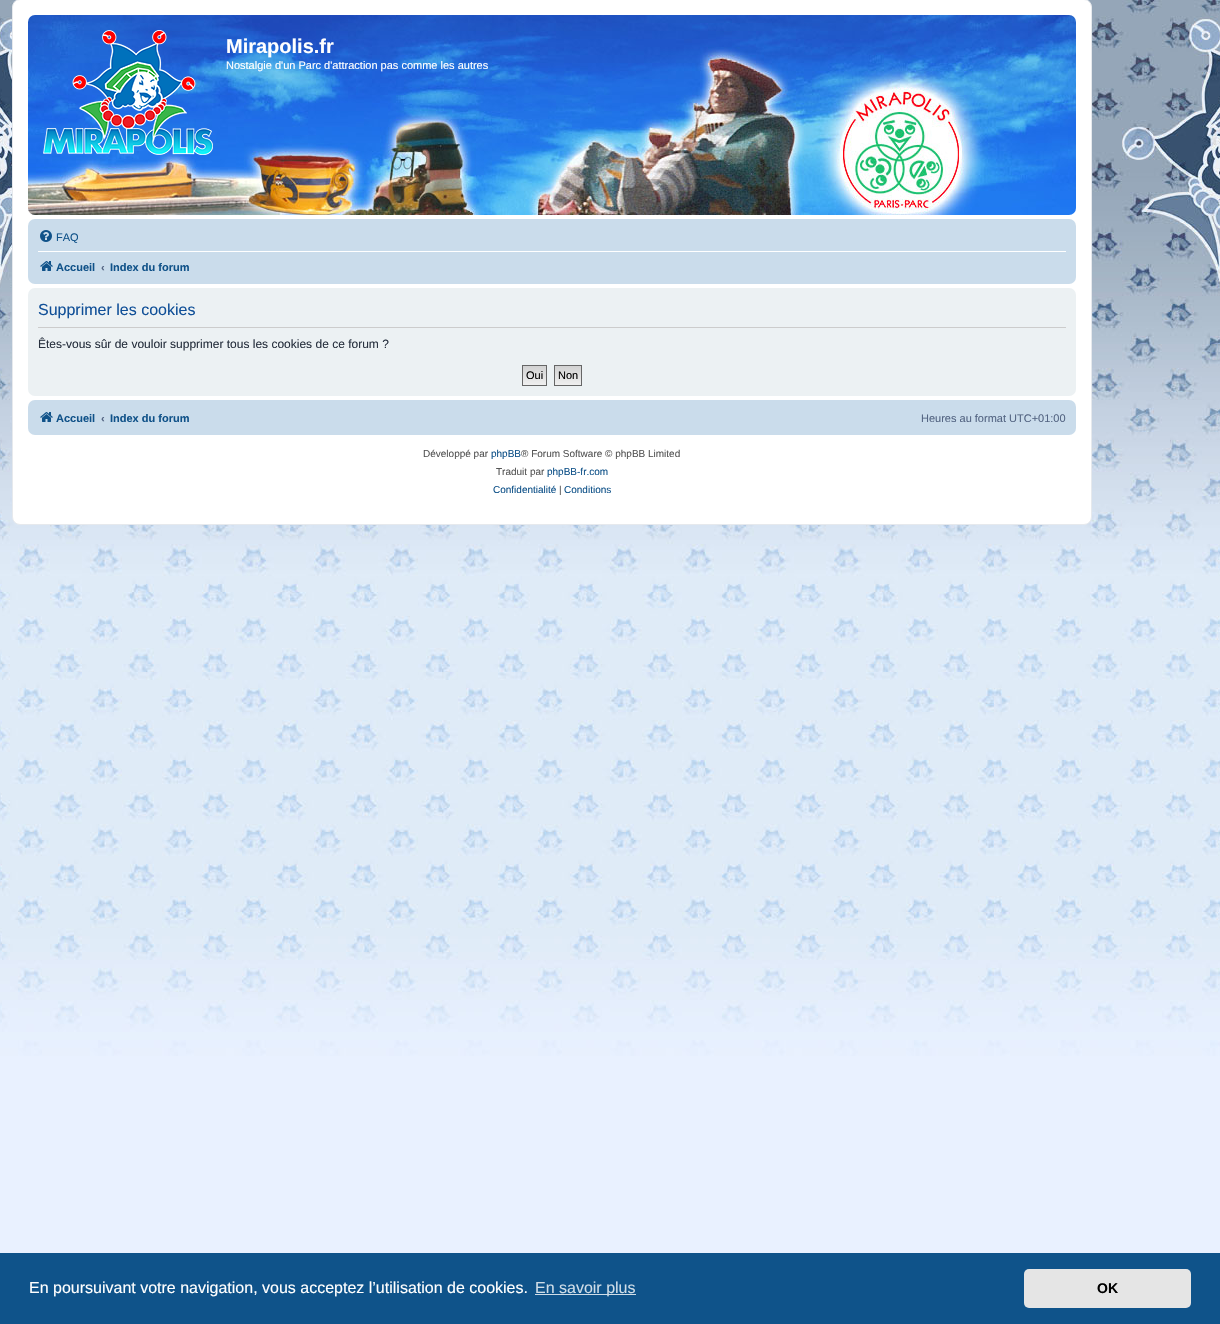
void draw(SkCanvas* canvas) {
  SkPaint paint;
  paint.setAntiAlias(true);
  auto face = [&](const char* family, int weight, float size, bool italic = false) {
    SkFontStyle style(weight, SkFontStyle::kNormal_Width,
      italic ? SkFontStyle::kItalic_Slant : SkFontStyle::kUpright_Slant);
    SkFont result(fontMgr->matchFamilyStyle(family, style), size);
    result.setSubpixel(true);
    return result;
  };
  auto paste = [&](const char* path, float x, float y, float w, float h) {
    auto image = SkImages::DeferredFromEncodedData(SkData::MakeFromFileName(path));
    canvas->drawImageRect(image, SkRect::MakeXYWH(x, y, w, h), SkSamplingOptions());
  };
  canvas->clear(0xffe9f1ff);
  paste("img/1.png", 0, 537, 1220, 519);
  paste("img/2.png", 0, 0, 1220, 537);
  paint.setColor(0xffffffff);
  canvas->drawRoundRect(SkRect::MakeXYWH(12.5f, -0.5f, 1079, 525), 7.5f, 7.5f, paint);
  paint.setStroke(true);
  paint.setStrokeWidth(1);
  paint.setColor(0xffe6e9ed);
  canvas->drawRoundRect(SkRect::MakeXYWH(12.5f, -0.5f, 1079, 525), 7.5f, 7.5f, paint);
  paste("img/3.png", 28, 15, 1048, 200);
  paste("img/4.png", 43, 30, 170, 125);
  paint.setStroke(false);
  paint.setColor(0xffcadceb);
  canvas->drawRoundRect(SkRect::MakeXYWH(28, 219, 1048, 65), 7, 7, paint);
  paste("img/5.png", 40, 230, 12, 12);
  paint.setColor(0xffffffff);
  canvas->drawRect(SkRect::MakeXYWH(38, 251, 1028, 1), paint);
  paste("img/6.png", 40, 261, 13, 10);
  paint.setColor(0xffecf1f3);
  canvas->drawRoundRect(SkRect::MakeXYWH(28, 288, 1048, 108), 7, 7, paint);
  paint.setColor(0xffcccccc);
  canvas->drawRect(SkRect::MakeXYWH(38, 327, 1028, 1), paint);
  {
    const SkColor colors[] = {0xffd2d2d2, 0xffefefef};
    const float stops[] = {0, 1};
    const SkPoint ends[] = {{535, 366}, {535, 385}};
    paint.setShader(SkGradientShader::MakeLinear(ends, colors, stops, 2, SkTileMode::kClamp));
    paint.setAlpha(255);
  }
  canvas->drawRect(SkRect::MakeXYWH(523, 366, 23, 19), paint);
  paint.setStroke(true);
  paint.setShader(nullptr);
  paint.setColor(0xff666666);
  canvas->drawRect(SkRect::MakeXYWH(522.5f, 365.5f, 24, 20), paint);
  paint.setStroke(false);
  {
    const SkColor colors[] = {0xffd2d2d2, 0xffefefef};
    const float stops[] = {0, 1};
    const SkPoint ends[] = {{568, 366}, {568, 385}};
    paint.setShader(SkGradientShader::MakeLinear(ends, colors, stops, 2, SkTileMode::kClamp));
    paint.setAlpha(255);
  }
  canvas->drawRect(SkRect::MakeXYWH(555, 366, 26, 19), paint);
  paint.setStroke(true);
  paint.setShader(nullptr);
  paint.setColor(0xff666666);
  canvas->drawRect(SkRect::MakeXYWH(554.5f, 365.5f, 27, 20), paint);
  paint.setStroke(false);
  paint.setColor(0xffcadceb);
  canvas->drawRoundRect(SkRect::MakeXYWH(28, 400, 1048, 35), 7, 7, paint);
  paste("img/6.png", 40, 412, 13, 10);
  paint.setColor(0xff0f538a);
  canvas->drawRect(SkRect::MakeXYWH(0, 1253, 1220, 71), paint);
  paint.setColor(0xffcfdde8);
  canvas->drawRect(SkRect::MakeXYWH(535, 1294, 101, 1), paint);
  paint.setColor(0xffe5e5e5);
  canvas->drawRoundRect(SkRect::MakeXYWH(1024, 1269, 167, 39), 5, 5, paint);
  auto f0 = face("Liberation Sans", 700, 20);
  paint.setColor(0xffffffff);
  canvas->drawString("Mirapolis.fr", 226, 53, f0, paint);
  auto f1 = face("Liberation Sans", 400, 11);
  canvas->drawString("Nostalgie d'un Parc d'attraction pas comme les autres", 226, 69, f1, paint);
  paint.setColor(0xff105289);
  canvas->drawString("FAQ", 56, 241, f1, paint);
  auto f2 = face("Liberation Sans", 700, 11);
  canvas->drawString("Accueil", 56, 271, f2, paint);
  paint.setColor(0xff536482);
  canvas->drawString("‹", 101, 271, f2, paint);
  paint.setColor(0xff105289);
  canvas->drawString("Index du forum", 110, 271, f2, paint);
  auto f3 = face("Liberation Sans", 400, 16);
  paint.setColor(0xff115098);
  canvas->drawString("Supprimer les cookies", 38, 315, f3, paint);
  auto f4 = face("Liberation Sans", 400, 12);
  paint.setColor(0xff28313f);
  canvas->drawString("Êtes-vous sûr de vouloir supprimer tous les cookies de ce forum ?", 38, 348, f4, paint);
  paint.setColor(0xff000000);
  canvas->drawString("Oui", 526, 379, f1, paint);
  canvas->drawString("Non", 558, 379, f1, paint);
  paint.setColor(0xff105289);
  canvas->drawString("Accueil", 56, 422, f2, paint);
  paint.setColor(0xff536482);
  canvas->drawString("‹", 101, 422, f2, paint);
  paint.setColor(0xff105289);
  canvas->drawString("Index du forum", 110, 422, f2, paint);
  paint.setColor(0xff536482);
  canvas->drawString("Heures au format UTC+01:00", 921, 422, f1, paint);
  auto f5 = face("Liberation Sans", 400, 10);
  paint.setColor(0xff555555);
  canvas->drawString("Développé par", 423, 457, f5, paint);
  paint.setColor(0xff105289);
  canvas->drawString("phpBB", 491, 457, f5, paint);
  paint.setColor(0xff555555);
  canvas->drawString("® Forum Software © phpBB Limited", 521, 457, f5, paint);
  canvas->drawString("Traduit par", 496, 475, f5, paint);
  paint.setColor(0xff105289);
  canvas->drawString("phpBB-fr.com", 547, 475, f5, paint);
  canvas->drawString("Confidentialité", 493, 493, f5, paint);
  paint.setColor(0xff555555);
  canvas->drawString("|", 559, 493, f5, paint);
  paint.setColor(0xff105289);
  canvas->drawString("Conditions", 564, 493, f5, paint);
  paint.setColor(0xffffffff);
  canvas->drawString("En poursuivant votre navigation, vous acceptez l’utilisation de cookies.", 29, 1293, f3, paint);
  paint.setColor(0xffcfdde8);
  canvas->drawString("En savoir plus", 535, 1293, f3, paint);
  auto f6 = face("Liberation Sans", 700, 14);
  paint.setColor(0xff000000);
  canvas->drawString("OK", 1097, 1293, f6, paint);
}
